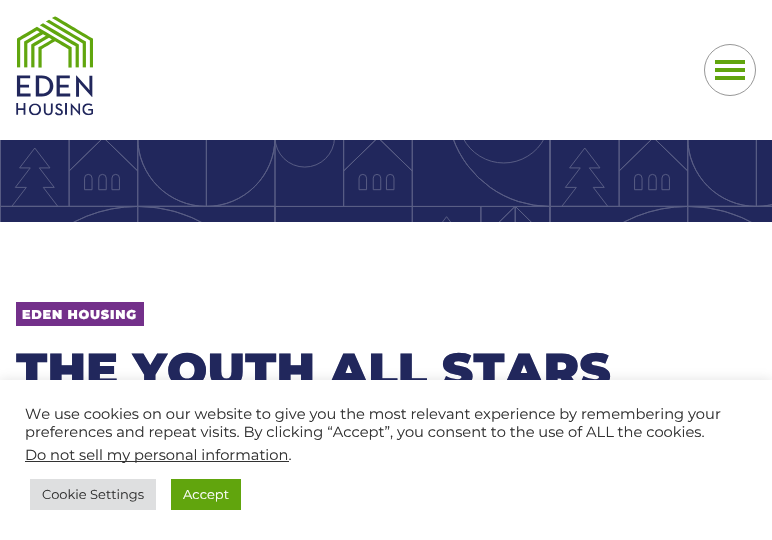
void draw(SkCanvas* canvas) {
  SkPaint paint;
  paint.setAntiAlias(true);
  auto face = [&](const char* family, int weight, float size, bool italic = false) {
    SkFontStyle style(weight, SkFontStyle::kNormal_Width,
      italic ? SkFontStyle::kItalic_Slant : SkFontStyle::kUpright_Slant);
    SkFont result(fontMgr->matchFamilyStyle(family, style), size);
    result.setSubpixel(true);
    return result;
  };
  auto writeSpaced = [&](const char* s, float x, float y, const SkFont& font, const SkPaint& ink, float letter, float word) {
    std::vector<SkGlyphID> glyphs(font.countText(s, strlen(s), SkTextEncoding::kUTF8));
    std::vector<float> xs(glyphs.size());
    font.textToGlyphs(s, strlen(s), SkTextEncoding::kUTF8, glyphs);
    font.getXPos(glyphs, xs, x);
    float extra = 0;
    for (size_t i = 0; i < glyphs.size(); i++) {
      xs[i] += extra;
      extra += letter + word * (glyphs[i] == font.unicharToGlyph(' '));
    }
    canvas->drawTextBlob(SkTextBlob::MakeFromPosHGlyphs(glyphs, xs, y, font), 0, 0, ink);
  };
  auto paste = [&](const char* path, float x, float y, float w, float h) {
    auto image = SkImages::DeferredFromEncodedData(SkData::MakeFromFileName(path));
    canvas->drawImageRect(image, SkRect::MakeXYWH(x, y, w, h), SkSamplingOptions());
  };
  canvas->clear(0xffffffff);
  paste("img/1.png", 16, 16, 77, 100);
  paint.setStroke(true);
  paint.setStrokeWidth(1);
  paint.setColor(0xff979797);
  canvas->drawCircle(730, 70, 25.5f, paint);
  paint.setStroke(false);
  {
    const struct { float x, y, w, h; SkColor color; } items[] = {
      {715, 60, 30, 4, 0xff61a50d},
      {715, 68, 30, 4, 0xff61a50d},
      {715, 76, 30, 4, 0xff61a50d},
      {0, 140, 772, 82, 0xff21275c},
    };
    for (auto [x, y, w, h, color] : items) {
      paint.setColor(color);
      canvas->drawRect(SkRect::MakeXYWH(x, y, w, h), paint);
    }
  }
  paste("img/2.png", 0, 140, 772, 82);
  paint.setColor(0xff73308a);
  canvas->drawRect(SkRect::MakeXYWH(16, 302, 128, 24), paint);
  paint.setColor(0x4dacabab);
  paint.setMaskFilter(SkMaskFilter::MakeBlur(kNormal_SkBlurStyle, 5));
  canvas->drawRect(SkRect::MakeXYWH(0, 379, 772, 160), paint);
  paint.setMaskFilter(nullptr);
  auto f0 = face("Montserrat", 900, 12.75f);
  paint.setColor(0xffffffff);
  writeSpaced("EDEN HOUSING", 22, 319, f0, paint, 0.75f, 0);
  auto f1 = face("Montserrat", 900, 48);
  paint.setColor(0xff21275c);
  canvas->drawString("THE YOUTH ALL STARS", 16, 387, f1, paint);
  paint.setColor(0xffffffff);
  canvas->drawRect(SkRect::MakeXYWH(0, 380, 772, 160), paint);
  auto f2 = face("Montserrat", 400, 14.65f);
  paint.setColor(0xff333333);
  canvas->drawString("We use cookies on our website to give you the most relevant experience by remembering your", 25, 419, f2, paint);
  canvas->drawString("preferences and repeat visits. By clicking “Accept”, you consent to the use of ALL the cookies.", 25, 437, f2, paint);
  canvas->drawRect(SkRect::MakeXYWH(25, 461, 264, 1), paint);
  canvas->drawString("Do not sell my personal information.", 25, 460, f2, paint);
  paint.setColor(0xffdedfe0);
  canvas->drawRect(SkRect::MakeXYWH(30, 479, 126, 31), paint);
  auto f3 = face("Montserrat", 400, 13);
  paint.setColor(0xff333333);
  canvas->drawString("Cookie Settings", 42, 499, f3, paint);
  paint.setColor(0xff61a50d);
  canvas->drawRect(SkRect::MakeXYWH(171, 479, 70, 31), paint);
  paint.setColor(0xffffffff);
  canvas->drawString("Accept", 183, 499, f3, paint);
}
